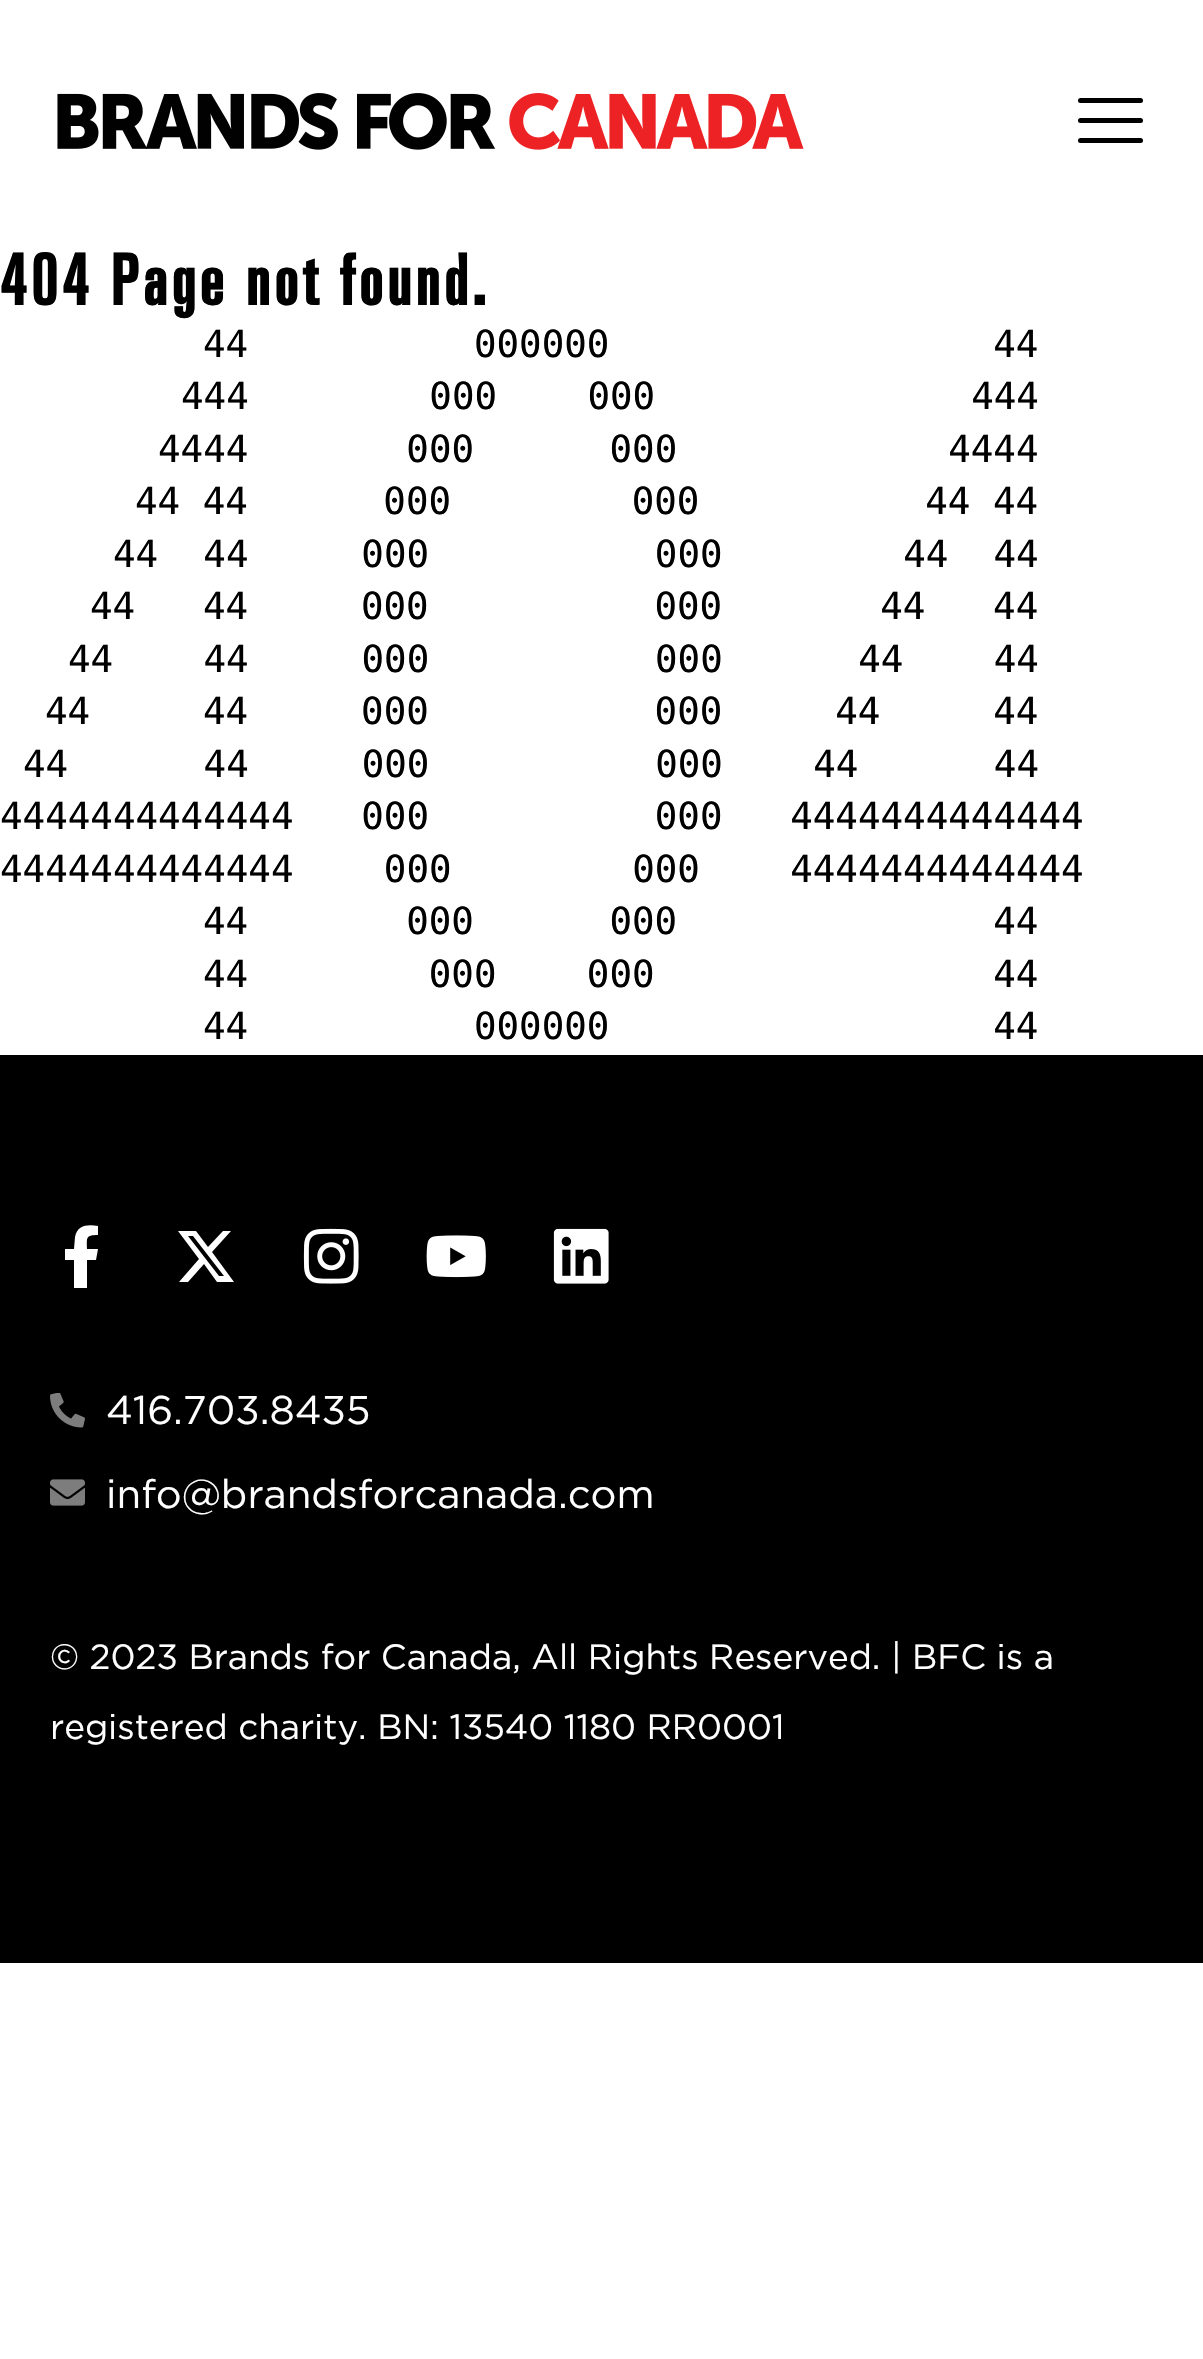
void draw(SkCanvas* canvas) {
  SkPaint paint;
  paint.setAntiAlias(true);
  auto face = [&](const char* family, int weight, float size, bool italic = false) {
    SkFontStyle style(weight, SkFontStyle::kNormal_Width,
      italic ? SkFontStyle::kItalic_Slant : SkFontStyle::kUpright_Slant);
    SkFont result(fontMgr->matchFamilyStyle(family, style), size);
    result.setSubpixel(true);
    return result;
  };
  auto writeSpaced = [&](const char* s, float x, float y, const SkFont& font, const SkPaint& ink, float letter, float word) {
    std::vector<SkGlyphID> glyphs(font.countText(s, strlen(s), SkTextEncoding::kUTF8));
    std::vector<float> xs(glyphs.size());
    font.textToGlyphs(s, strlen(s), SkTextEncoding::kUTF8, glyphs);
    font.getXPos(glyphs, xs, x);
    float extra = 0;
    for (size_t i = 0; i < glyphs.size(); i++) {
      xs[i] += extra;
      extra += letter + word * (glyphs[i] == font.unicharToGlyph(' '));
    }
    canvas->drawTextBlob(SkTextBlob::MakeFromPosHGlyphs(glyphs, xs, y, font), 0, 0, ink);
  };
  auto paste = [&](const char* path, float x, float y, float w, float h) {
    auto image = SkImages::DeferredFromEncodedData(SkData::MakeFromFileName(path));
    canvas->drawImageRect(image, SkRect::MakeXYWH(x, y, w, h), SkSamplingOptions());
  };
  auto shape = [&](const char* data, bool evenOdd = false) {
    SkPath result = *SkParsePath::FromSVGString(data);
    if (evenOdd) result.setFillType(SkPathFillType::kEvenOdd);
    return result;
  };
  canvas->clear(0xffffffff);
  paste("img/1.png", 57, 93, 747, 57);
  paint.setColor(0xff000000);
  canvas->drawRoundRect(SkRect::MakeXYWH(1078, 118, 65, 5), 2.5f, 2.5f, paint);
  canvas->drawRoundRect(SkRect::MakeXYWH(1078, 98, 65, 5), 2.5f, 2.5f, paint);
  canvas->drawRoundRect(SkRect::MakeXYWH(1078, 138, 65, 5), 2.5f, 2.5f, paint);
  canvas->drawRect(SkRect::MakeXYWH(0, 1055, 1203, 908), paint);
  paint.setColor(0xffffffff);
  canvas->drawPath(shape("M96 1260L98 1249H87C87 1238 85 1235 98 1235V1226C88 1224 77 1225 75 1237L74 1249H65V1260H74V1288H87V1260Z"), paint);
  canvas->drawPath(shape("M223 1231H231L212 1252L234 1282H217L204 1264L188 1282H179L199 1259L178 1231H196L208 1247ZM219 1276H224L193 1236H188Z"), paint);
  paste("img/2.png", 303, 1228, 56, 56);
  paste("img/3.png", 426, 1235, 60, 43);
  paste("img/4.png", 553, 1228, 56, 56);
  paste("img/5.png", 50, 1393, 35, 35);
  paste("img/6.png", 50, 1479, 35, 27);
  auto f0 = face("Univers", 700, 70);
  paint.setColor(0xff000000);
  writeSpaced("404 Page not found.", 0, 305, f0, paint, 5, 0);
  auto f1 = face("DejaVu Sans Mono", 400, 37.5f);
  {
    const struct { const char* s; float x, y; } items[] = {
      {"44          000000                 44", 203, 357},
      {"444        000    000              444", 181, 409},
      {"4444       000      000            4444", 158, 462},
      {"44 44      000        000          44 44", 135, 514},
      {"44  44     000          000        44  44", 113, 567},
      {"44   44     000          000       44   44", 90, 619},
      {"44    44     000          000      44    44", 68, 672},
      {"44     44     000          000     44     44", 45, 724},
      {"44      44     000          000    44      44", 23, 777},
      {"4444444444444   000          000   4444444444444", 0, 829},
      {"4444444444444    000        000    4444444444444", 0, 882},
      {"44       000      000              44", 203, 934},
      {"44        000    000               44", 203, 987},
      {"44          000000                 44", 203, 1039},
    };
    for (auto [s, x, y] : items) {
      canvas->drawString(s, x, y, f1, paint);
    }
  }
  auto f2 = face("Gotham", 400, 40);
  paint.setColor(0xffffffff);
  canvas->drawString("416.703.8435", 106, 1424, f2, paint);
  canvas->drawString("info@brandsforcanada.com", 106, 1508, f2, paint);
  auto f3 = face("Gotham", 400, 35);
  canvas->drawString("© 2023 Brands for Canada, All Rights Reserved. | BFC is a", 50, 1669, f3, paint);
  canvas->drawString("registered charity. BN: 13540 1180 RR0001", 50, 1739, f3, paint);
}
